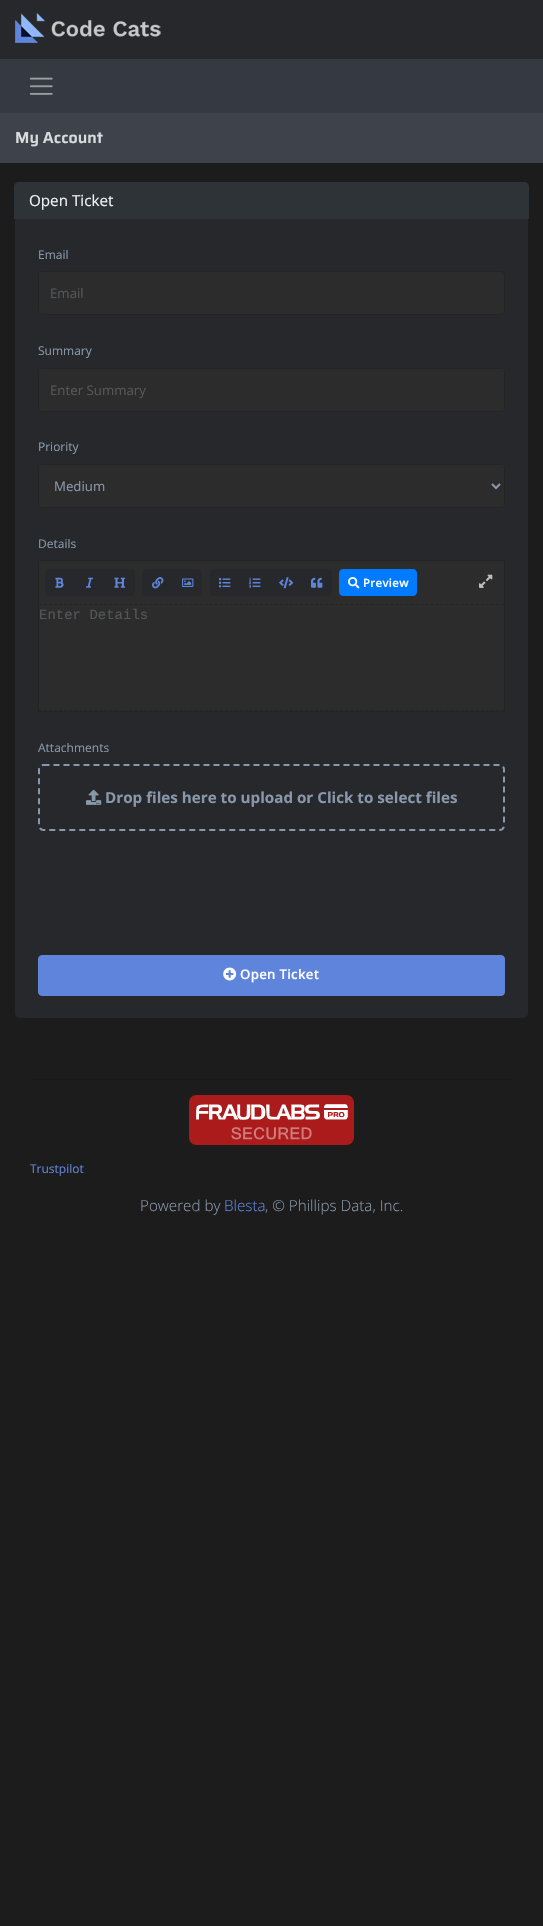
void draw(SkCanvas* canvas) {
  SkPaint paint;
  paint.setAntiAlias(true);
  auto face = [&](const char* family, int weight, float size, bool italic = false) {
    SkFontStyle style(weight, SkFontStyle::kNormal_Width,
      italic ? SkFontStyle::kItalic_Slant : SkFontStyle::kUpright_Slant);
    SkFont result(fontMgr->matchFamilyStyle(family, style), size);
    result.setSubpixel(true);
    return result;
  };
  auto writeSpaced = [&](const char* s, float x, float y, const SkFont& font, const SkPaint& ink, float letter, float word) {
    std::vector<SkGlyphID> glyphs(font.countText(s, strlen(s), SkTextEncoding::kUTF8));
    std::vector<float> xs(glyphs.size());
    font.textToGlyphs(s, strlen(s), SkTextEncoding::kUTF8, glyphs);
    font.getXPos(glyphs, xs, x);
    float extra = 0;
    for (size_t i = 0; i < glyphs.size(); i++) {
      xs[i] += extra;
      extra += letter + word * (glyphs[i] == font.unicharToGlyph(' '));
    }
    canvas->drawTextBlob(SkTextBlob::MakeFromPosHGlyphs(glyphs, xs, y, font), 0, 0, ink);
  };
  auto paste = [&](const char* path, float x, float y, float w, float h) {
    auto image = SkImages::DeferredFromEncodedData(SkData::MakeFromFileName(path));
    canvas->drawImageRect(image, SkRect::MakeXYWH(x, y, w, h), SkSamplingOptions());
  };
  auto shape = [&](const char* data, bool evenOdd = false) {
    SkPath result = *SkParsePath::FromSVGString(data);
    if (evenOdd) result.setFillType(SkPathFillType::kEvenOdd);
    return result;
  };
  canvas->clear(0xff1c1c1c);
  paint.setColor(0xff26282b);
  canvas->drawRect(SkRect::MakeXYWH(0, 0, 543, 59), paint);
  paste("img/1.png", 15, 13, 146, 30);
  paint.setColor(0xff353941);
  canvas->drawRect(SkRect::MakeXYWH(0, 59, 543, 54), paint);
  paste("img/2.png", 29, 77, 24, 18);
  paint.setColor(0xff3e424a);
  canvas->drawRect(SkRect::MakeXYWH(0, 113, 543, 50), paint);
  paint.setColor(0xff26282b);
  canvas->drawRoundRect(SkRect::MakeXYWH(15, 183, 513, 835), 5, 5, paint);
  paint.setColor(0xff2e3338);
  canvas->drawPath(shape("M19 182H524C527 182 529 184 529 187V219H14V187C14 184 16 182 19 182Z"), paint);
  paint.setColor(0xff2c2c2c);
  canvas->drawRoundRect(SkRect::MakeXYWH(38.5f, 271.5f, 466, 43), 3.5f, 3.5f, paint);
  paint.setStroke(true);
  paint.setStrokeWidth(1);
  paint.setColor(0xff242424);
  canvas->drawRoundRect(SkRect::MakeXYWH(38.5f, 271.5f, 466, 43), 3.5f, 3.5f, paint);
  paint.setStroke(false);
  paint.setColor(0xff2c2c2c);
  canvas->drawRoundRect(SkRect::MakeXYWH(38.5f, 368.5f, 466, 43), 3.5f, 3.5f, paint);
  paint.setStroke(true);
  paint.setColor(0xff242424);
  canvas->drawRoundRect(SkRect::MakeXYWH(38.5f, 368.5f, 466, 43), 3.5f, 3.5f, paint);
  paint.setStroke(false);
  paint.setColor(0xff2c2c2c);
  canvas->drawRoundRect(SkRect::MakeXYWH(38.5f, 464.5f, 466, 43), 3.5f, 3.5f, paint);
  paint.setStroke(true);
  paint.setColor(0xff242424);
  canvas->drawRoundRect(SkRect::MakeXYWH(38.5f, 464.5f, 466, 43), 3.5f, 3.5f, paint);
  paint.setStrokeWidth(2);
  paint.setColor(0xff8898aa);
  canvas->drawPath(shape("M492 484L496 488L500 484"), paint);
  paint.setStroke(false);
  paint.setColor(0xff2c2c2c);
  canvas->drawRect(SkRect::MakeXYWH(38.5f, 560.5f, 466, 151), paint);
  paint.setStroke(true);
  paint.setStrokeWidth(1);
  paint.setColor(0xff242424);
  canvas->drawRect(SkRect::MakeXYWH(38.5f, 560.5f, 466, 151), paint);
  paint.setStroke(false);
  paint.setColor(0xff26282b);
  canvas->drawPath(shape("M49 569H75V596H49C47 596 45 594 45 592V573C45 571 47 569 49 569Z"), paint);
  paste("img/3.png", 55, 577, 9, 11);
  canvas->drawRect(SkRect::MakeXYWH(75, 569, 30, 27), paint);
  paste("img/4.png", 86, 577, 8, 11);
  canvas->drawPath(shape("M105 569H131C133 569 135 571 135 573V592C135 594 133 596 131 596H105Z"), paint);
  paste("img/5.png", 114, 577, 12, 11);
  canvas->drawPath(shape("M146 569H172V596H146C144 596 142 594 142 592V573C142 571 144 569 146 569Z"), paint);
  paste("img/6.png", 152, 577, 12, 12);
  canvas->drawPath(shape("M172 569H198C200 569 202 571 202 573V592C202 594 200 596 198 596H172Z"), paint);
  paste("img/7.png", 182, 578, 12, 9);
  canvas->drawPath(shape("M214 569H240V596H214C212 596 210 594 210 592V573C210 571 212 569 214 569Z"), paint);
  paste("img/8.png", 219, 578, 12, 10);
  canvas->drawRect(SkRect::MakeXYWH(240, 569, 62, 27), paint);
  paste("img/9.png", 249, 577, 12, 11);
  canvas->drawPath(shape("M302 569H328C330 569 332 571 332 573V592C332 594 330 596 328 596H302Z"), paint);
  paste("img/10.png", 311, 577, 12, 11);
  paste("img/11.png", 279, 577, 15, 12);
  paint.setColor(0xff007bff);
  canvas->drawRoundRect(SkRect::MakeXYWH(339.5f, 569.5f, 77, 26), 3.5f, 3.5f, paint);
  paint.setStroke(true);
  canvas->drawRoundRect(SkRect::MakeXYWH(339.5f, 569.5f, 77, 26), 3.5f, 3.5f, paint);
  paste("img/12.png", 348, 577, 12, 12);
  paste("img/13.png", 479, 574, 14, 14);
  paint.setColor(0xff242424);
  paint.setPathEffect(SkDashPathEffect::Make({{3, 2.02f}}, 0));
  canvas->drawPath(shape("M39 604.5H504"), paint);
  paint.setPathEffect(nullptr);
  paint.setPathEffect(SkDashPathEffect::Make({{3, 2.02f}}, 0));
  canvas->drawPath(shape("M39 710.5H504"), paint);
  paint.setPathEffect(nullptr);
  paint.setStrokeWidth(2);
  paint.setColor(0xff8898aa);
  paint.setPathEffect(SkDashPathEffect::Make({{6, 4}}, 0));
  canvas->drawPath(shape("M43.5 765H499.5C502 765 504 767 504 769.5V825.5C504 828 502 830 499.5 830H43.5C41 830 39 828 39 825.5V769.5C39 767 41 765 43.5 765Z"), paint);
  paint.setPathEffect(nullptr);
  paste("img/14.png", 86, 789, 16, 16);
  paint.setStroke(false);
  paint.setColor(0xff5f84db);
  canvas->drawRoundRect(SkRect::MakeXYWH(38.5f, 955.5f, 466, 40), 3.5f, 3.5f, paint);
  paint.setStroke(true);
  paint.setStrokeWidth(1);
  canvas->drawRoundRect(SkRect::MakeXYWH(38.5f, 955.5f, 466, 40), 3.5f, 3.5f, paint);
  paste("img/15.png", 223, 967, 14, 14);
  paint.setStroke(false);
  paint.setColor(0xff191919);
  canvas->drawRect(SkRect::MakeXYWH(30, 1079, 483, 1), paint);
  paste("img/16.png", 189, 1095, 165, 50);
  auto f0 = face("Saira", 600, 16);
  paint.setColor(0xffd8dbde);
  canvas->drawString("My Account", 15, 143, f0, paint);
  auto f1 = face("Open Sans", 400, 15.2f);
  paint.setColor(0xfff2f2f2);
  canvas->drawString("Open Ticket", 29, 206, f1, paint);
  auto f2 = face("Open Sans", 400, 12);
  paint.setColor(0xff8898aa);
  canvas->drawString("Email", 38, 259, f2, paint);
  auto f3 = face("Open Sans", 400, 13.25f);
  paint.setColor(0xff555658);
  canvas->drawString("Email", 50, 298, f3, paint);
  paint.setColor(0xff8898aa);
  canvas->drawString("Summary", 38, 355, f2, paint);
  paint.setColor(0xff555658);
  canvas->drawString("Enter Summary", 50, 395, f3, paint);
  paint.setColor(0xff8898aa);
  canvas->drawString("Priority", 38, 451, f2, paint);
  canvas->drawString("Medium", 54, 491, f3, paint);
  canvas->drawString("Details", 38, 548, f2, paint);
  auto f4 = face("Open Sans", 600, 11.5f);
  paint.setColor(0xffffffff);
  writeSpaced("Preview", 363, 587, f4, paint, 0.25f, 0);
  auto f5 = face("Liberation Mono", 400, 14);
  paint.setColor(0xff555658);
  canvas->drawString("Enter Details", 39, 619, f5, paint);
  paint.setColor(0xff8898aa);
  canvas->drawString("Attachments", 38, 752, f2, paint);
  auto f6 = face("Open Sans", 700, 15.2f);
  canvas->drawString("Drop files here to upload or Click to select files", 105, 803, f6, paint);
  auto f7 = face("Open Sans", 600, 13.25f);
  paint.setColor(0xffffffff);
  writeSpaced("Open Ticket", 240, 979, f7, paint, 0.25f, 0);
  paint.setColor(0xff5f85db);
  canvas->drawString("Trustpilot", 30, 1173, f2, paint);
  auto f8 = face("Open Sans", 300, 15.2f);
  paint.setColor(0xff8898aa);
  canvas->drawString("Powered by", 140, 1211, f8, paint);
  paint.setColor(0xff5f85db);
  canvas->drawString("Blesta", 224, 1211, f8, paint);
  paint.setColor(0xff8898aa);
  canvas->drawString(", © Phillips Data, Inc.", 265, 1211, f8, paint);
}
